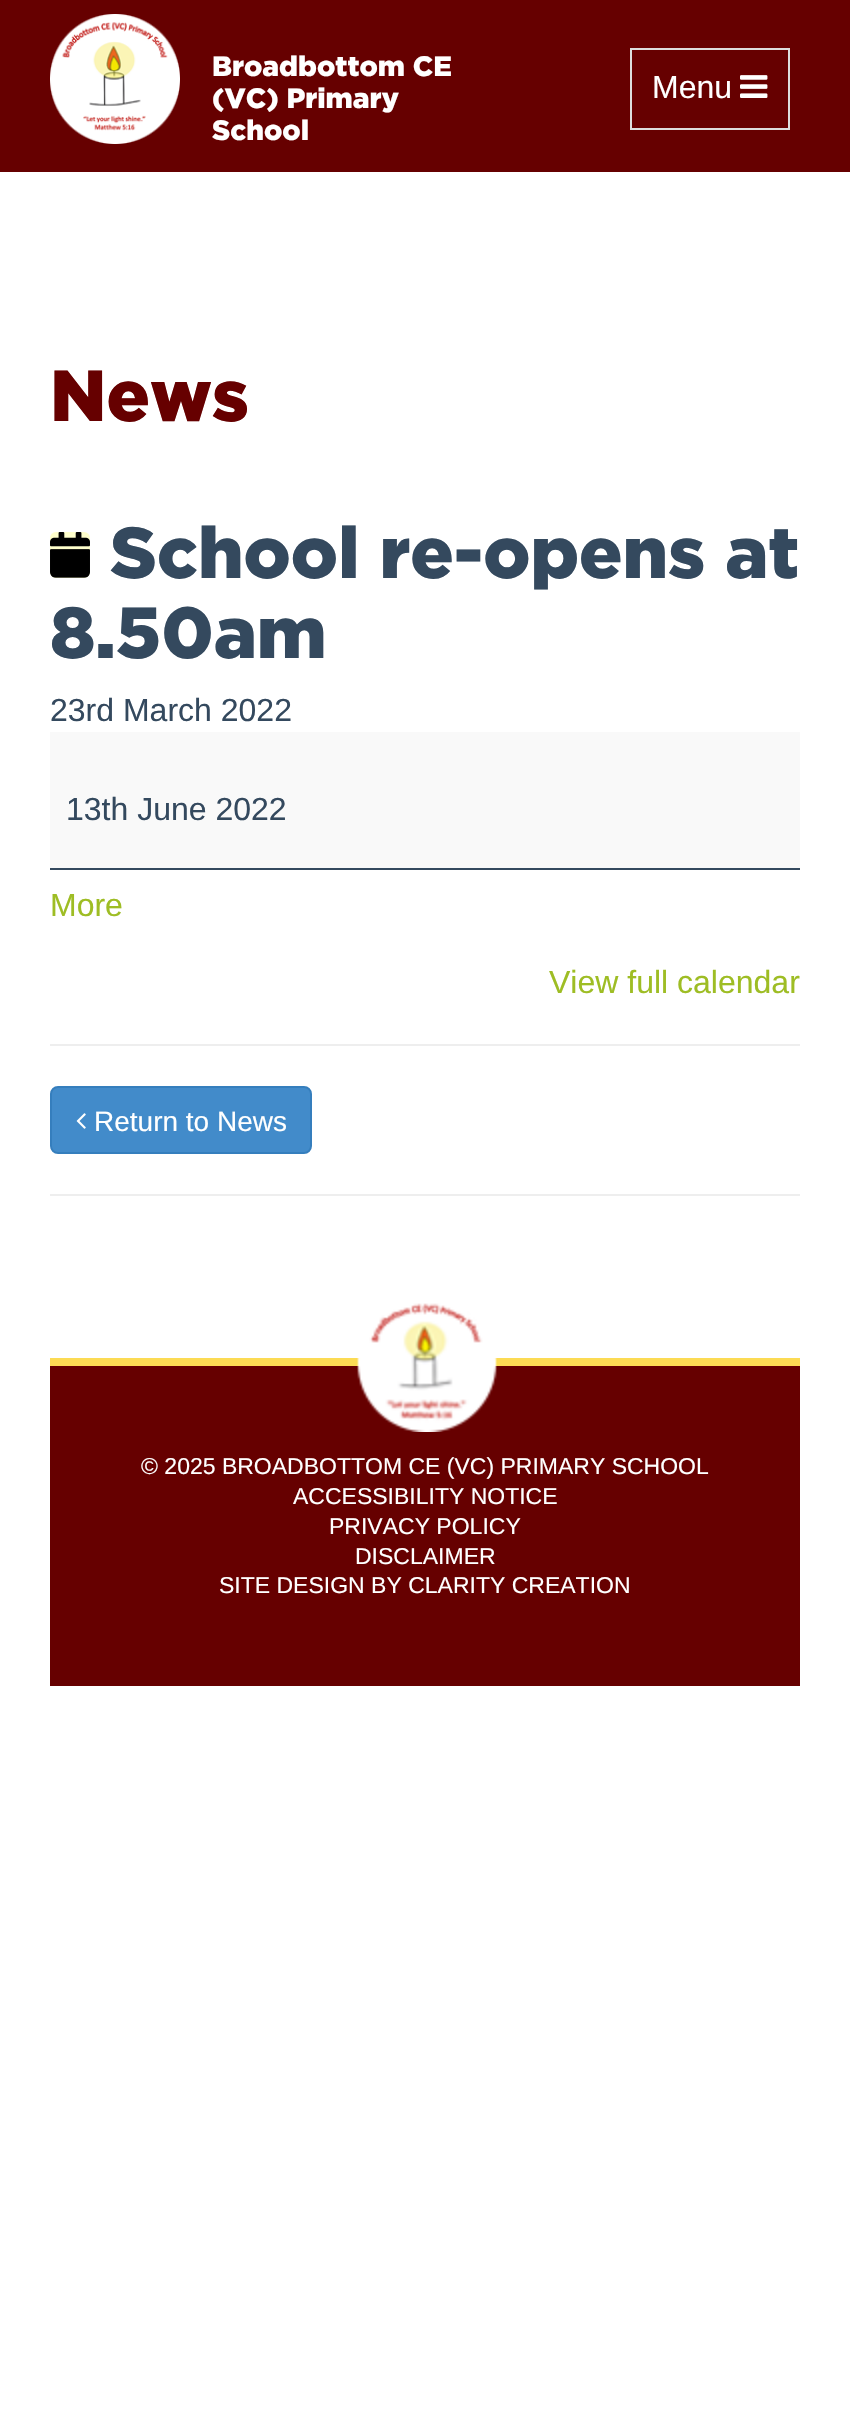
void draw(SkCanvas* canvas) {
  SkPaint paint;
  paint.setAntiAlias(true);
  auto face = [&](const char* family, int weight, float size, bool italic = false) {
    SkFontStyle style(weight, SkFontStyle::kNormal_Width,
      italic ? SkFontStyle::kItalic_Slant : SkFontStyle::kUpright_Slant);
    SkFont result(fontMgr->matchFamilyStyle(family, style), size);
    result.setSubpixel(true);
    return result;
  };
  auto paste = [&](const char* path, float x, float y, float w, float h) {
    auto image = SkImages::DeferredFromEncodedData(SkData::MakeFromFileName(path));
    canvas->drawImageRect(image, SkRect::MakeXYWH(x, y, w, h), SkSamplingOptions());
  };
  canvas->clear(0xffffffff);
  paint.setColor(0xff660000);
  canvas->drawRect(SkRect::MakeXYWH(0, 0, 850, 172), paint);
  paste("img/1.png", 50, 14, 130, 130);
  paint.setStroke(true);
  paint.setStrokeWidth(2);
  paint.setColor(0xffdddddd);
  canvas->drawRect(SkRect::MakeXYWH(631, 49, 158, 80), paint);
  paste("img/2.png", 740, 75, 28, 23);
  paint.setStroke(false);
  paint.setColor(0xffffffcc);
  canvas->drawRoundRect(SkRect::MakeXYWH(50, 532, 40, 46), 6, 6, paint);
  paste("img/3.png", 50, 532, 40, 46);
  {
    const struct { float x, y, w, h; SkColor color; } items[] = {
      {50, 732, 750, 136, 0xfff9f9f9},
      {50, 868, 750, 2, 0xff34495e},
      {50, 1044, 750, 2, 0xffeeeeee},
    };
    for (auto [x, y, w, h, color] : items) {
      paint.setColor(color);
      canvas->drawRect(SkRect::MakeXYWH(x, y, w, h), paint);
    }
  }
  paint.setColor(0xff428bca);
  canvas->drawRoundRect(SkRect::MakeXYWH(51, 1087, 260, 66), 7, 7, paint);
  paint.setStroke(true);
  paint.setColor(0xff357ebd);
  canvas->drawRoundRect(SkRect::MakeXYWH(51, 1087, 260, 66), 7, 7, paint);
  paste("img/4.png", 76, 1113, 10, 16);
  paint.setStroke(false);
  {
    const struct { float x, y, w, h; SkColor color; } items[] = {
      {50, 1194, 750, 2, 0xffeeeeee},
      {50, 1366, 750, 320, 0xff660000},
      {50, 1358, 750, 8, 0xfffcdb54},
    };
    for (auto [x, y, w, h, color] : items) {
      paint.setColor(color);
      canvas->drawRect(SkRect::MakeXYWH(x, y, w, h), paint);
    }
  }
  paste("img/5.png", 357, 1303, 140, 129);
  auto f0 = face("Gotham", 900, 28);
  paint.setColor(0xffffffff);
  {
    const struct { const char* s; float x, y; } items[] = {
      {"Broadbottom CE", 212, 76},
      {"(VC) Primary", 212, 108},
      {"School", 212, 140},
    };
    for (auto [s, x, y] : items) {
      canvas->drawString(s, x, y, f0, paint);
    }
  }
  auto f1 = face("Liberation Sans", 400, 32);
  canvas->drawString("Menu", 652, 98, f1, paint);
  auto f2 = face("Gotham", 900, 72);
  paint.setColor(0xff660000);
  canvas->drawString("News", 50, 421, f2, paint);
  paint.setColor(0xff34495e);
  canvas->drawString("School re-opens at", 110, 578, f2, paint);
  canvas->drawString("8.50am", 50, 658, f2, paint);
  canvas->drawString("23rd March 2022", 50, 721, f1, paint);
  canvas->drawString("13th June 2022", 66, 820, f1, paint);
  paint.setColor(0xff9ebd24);
  canvas->drawString("More", 50, 916, f1, paint);
  canvas->drawString("View full calendar", 549, 993, f1, paint);
  auto f3 = face("Liberation Sans", 400, 28);
  paint.setColor(0xffffffff);
  canvas->drawString("Return to News", 94, 1131, f3, paint);
  auto f4 = face("Liberation Sans", 400, 23);
  {
    const struct { const char* s; float x, y; } items[] = {
      {"© 2025 BROADBOTTOM CE (VC) PRIMARY SCHOOL", 141, 1474},
      {"ACCESSIBILITY NOTICE", 293, 1504},
      {"PRIVACY POLICY", 329, 1534},
      {"DISCLAIMER", 355, 1564},
      {"SITE DESIGN BY CLARITY CREATION", 219, 1593},
    };
    for (auto [s, x, y] : items) {
      canvas->drawString(s, x, y, f4, paint);
    }
  }
}
